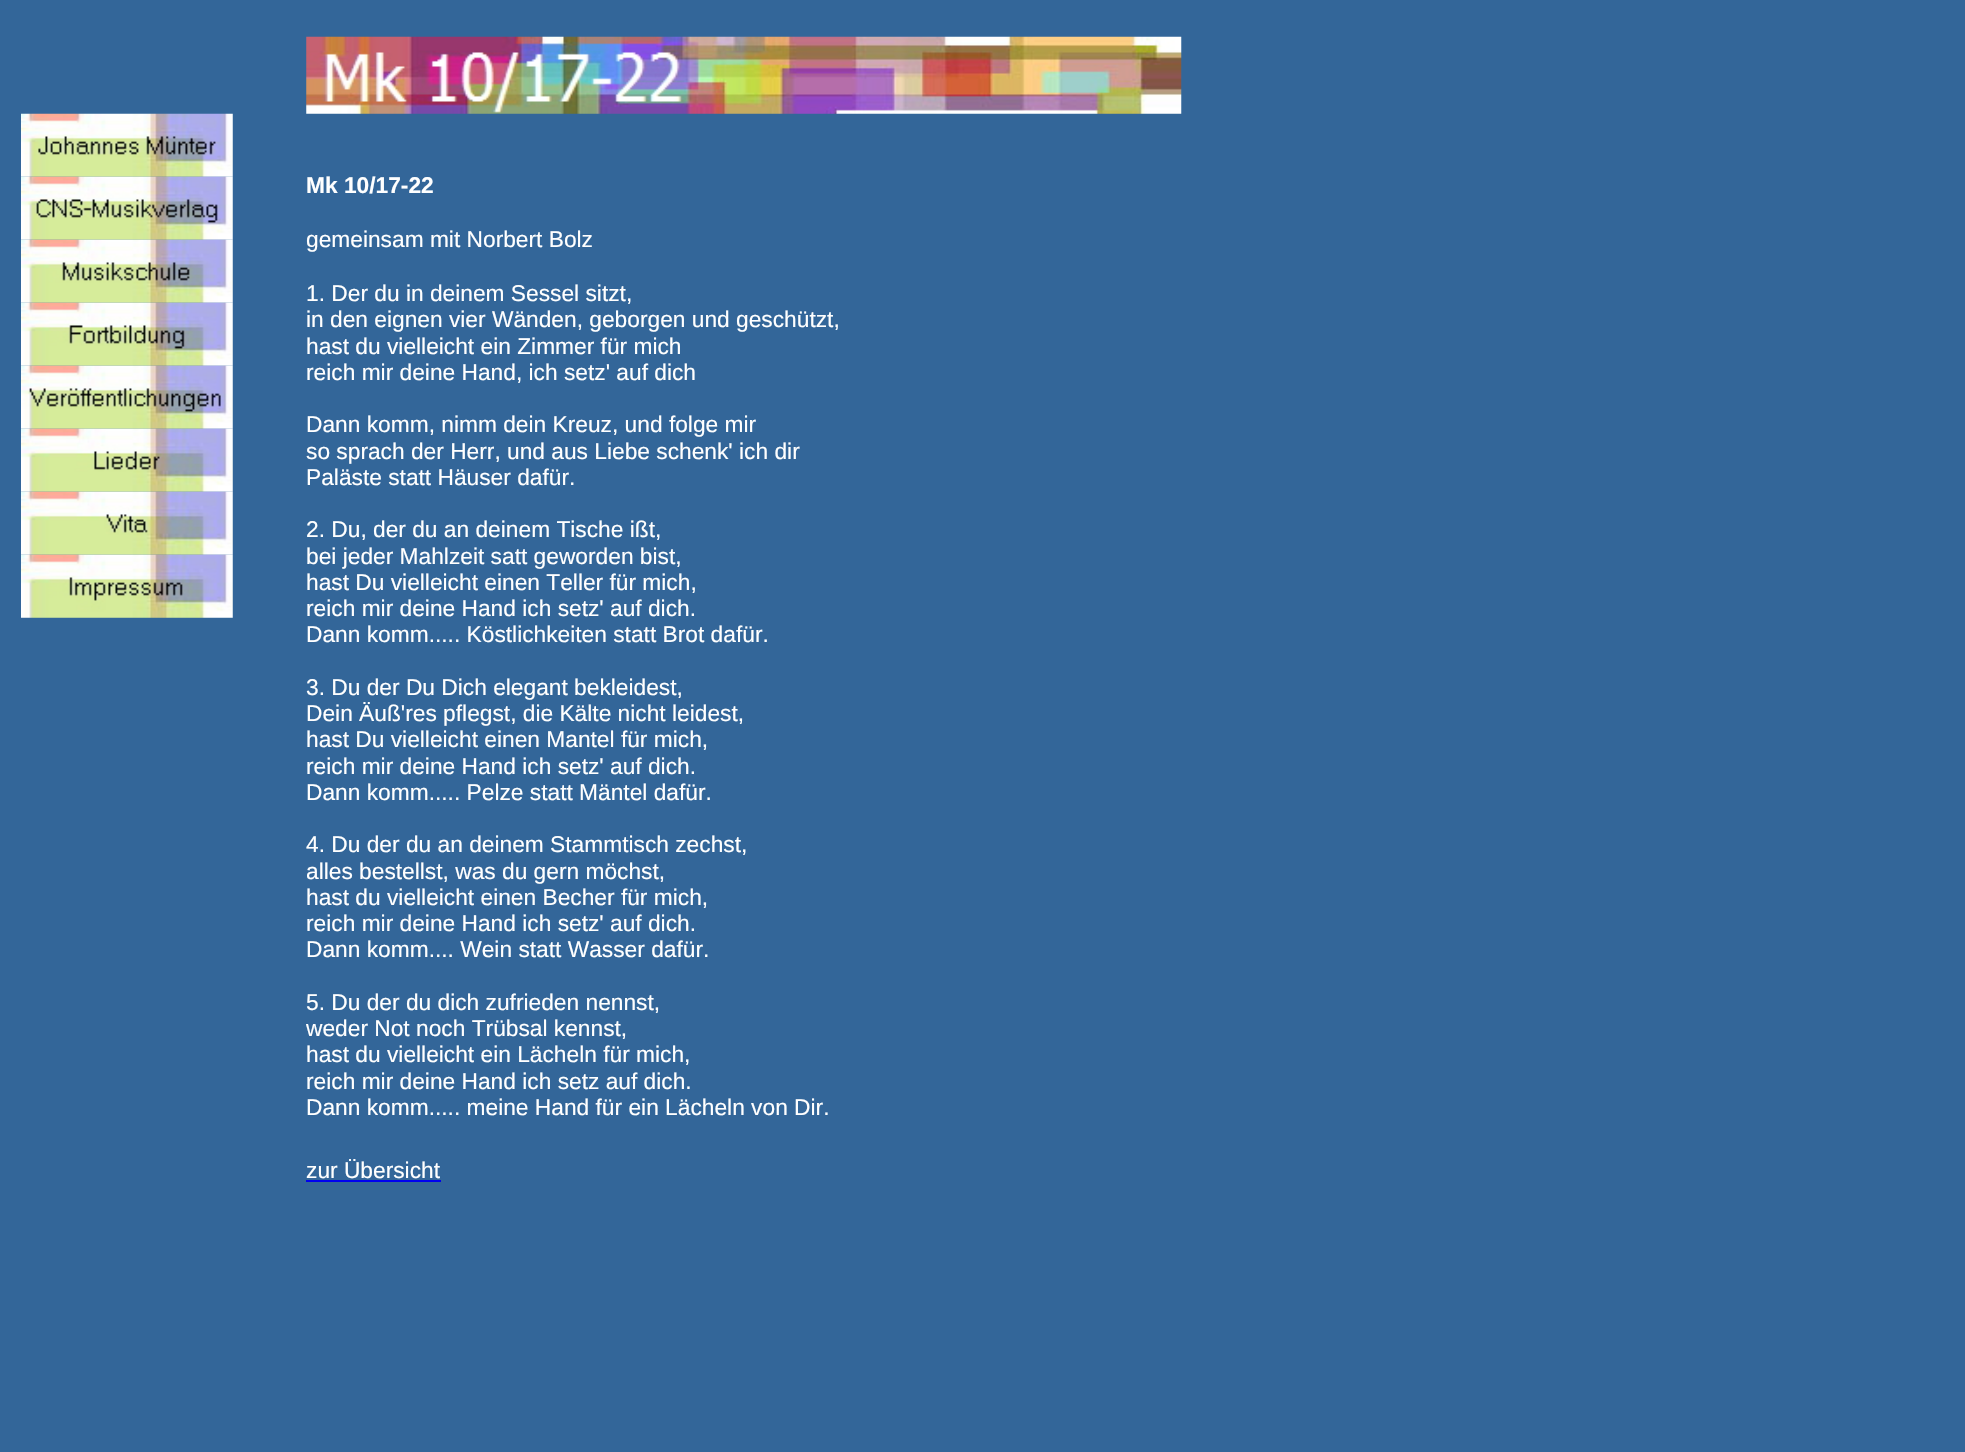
void draw(SkCanvas* canvas) {
  SkPaint paint;
  paint.setAntiAlias(true);
  auto face = [&](const char* family, int weight, float size, bool italic = false) {
    SkFontStyle style(weight, SkFontStyle::kNormal_Width,
      italic ? SkFontStyle::kItalic_Slant : SkFontStyle::kUpright_Slant);
    SkFont result(fontMgr->matchFamilyStyle(family, style), size);
    result.setSubpixel(true);
    return result;
  };
  auto paste = [&](const char* path, float x, float y, float w, float h) {
    auto image = SkImages::DeferredFromEncodedData(SkData::MakeFromFileName(path));
    canvas->drawImageRect(image, SkRect::MakeXYWH(x, y, w, h), SkSamplingOptions());
  };
  canvas->clear(0xff336699);
  paste("img/1.png", 21, 113, 212, 64);
  paste("img/2.png", 21, 176, 212, 64);
  paste("img/3.png", 21, 239, 212, 64);
  paste("img/4.png", 21, 302, 212, 64);
  paste("img/5.png", 21, 365, 212, 64);
  paste("img/6.png", 21, 428, 212, 64);
  paste("img/7.png", 21, 491, 212, 64);
  paste("img/8.png", 21, 554, 212, 64);
  paste("img/9.png", 306, 36, 876, 78);
  paint.setColor(0xff0000ee);
  canvas->drawRect(SkRect::MakeXYWH(306, 1180, 135, 2), paint);
  auto f0 = face("Liberation Sans", 700, 22.75f);
  paint.setColor(0xffffffff);
  canvas->drawString("Mk 10/17-22", 306, 193, f0, paint);
  auto f1 = face("Liberation Sans", 400, 22.75f);
  {
    const struct { const char* s; float x, y; } items[] = {
      {"gemeinsam mit Norbert Bolz", 306, 247},
      {"1. Der du in deinem Sessel sitzt,", 306, 301},
      {"in den eignen vier Wänden, geborgen und geschützt,", 306, 327},
      {"hast du vielleicht ein Zimmer für mich", 306, 354},
      {"reich mir deine Hand, ich setz' auf dich", 306, 380},
      {"Dann komm, nimm dein Kreuz, und folge mir", 306, 432},
      {"so sprach der Herr, und aus Liebe schenk' ich dir", 306, 459},
      {"Paläste statt Häuser dafür.", 306, 485},
      {"2. Du, der du an deinem Tische ißt,", 306, 537},
      {"bei jeder Mahlzeit satt geworden bist,", 306, 564},
      {"hast Du vielleicht einen Teller für mich,", 306, 590},
      {"reich mir deine Hand ich setz' auf dich.", 306, 616},
      {"Dann komm..... Köstlichkeiten statt Brot dafür.", 306, 642},
      {"3. Du der Du Dich elegant bekleidest,", 306, 695},
      {"Dein Äuß'res pflegst, die Kälte nicht leidest,", 306, 721},
      {"hast Du vielleicht einen Mantel für mich,", 306, 747},
      {"reich mir deine Hand ich setz' auf dich.", 306, 774},
      {"Dann komm..... Pelze statt Mäntel dafür.", 306, 800},
      {"4. Du der du an deinem Stammtisch zechst,", 306, 852},
      {"alles bestellst, was du gern möchst,", 306, 879},
      {"hast du vielleicht einen Becher für mich,", 306, 905},
      {"reich mir deine Hand ich setz' auf dich.", 306, 931},
      {"Dann komm.... Wein statt Wasser dafür.", 306, 957},
      {"5. Du der du dich zufrieden nennst,", 306, 1010},
      {"weder Not noch Trübsal kennst,", 306, 1036},
      {"hast du vielleicht ein Lächeln für mich,", 306, 1062},
      {"reich mir deine Hand ich setz auf dich.", 306, 1089},
      {"Dann komm..... meine Hand für ein Lächeln von Dir.", 306, 1115},
      {"zur Übersicht", 306, 1178},
    };
    for (auto [s, x, y] : items) {
      canvas->drawString(s, x, y, f1, paint);
    }
  }
}
